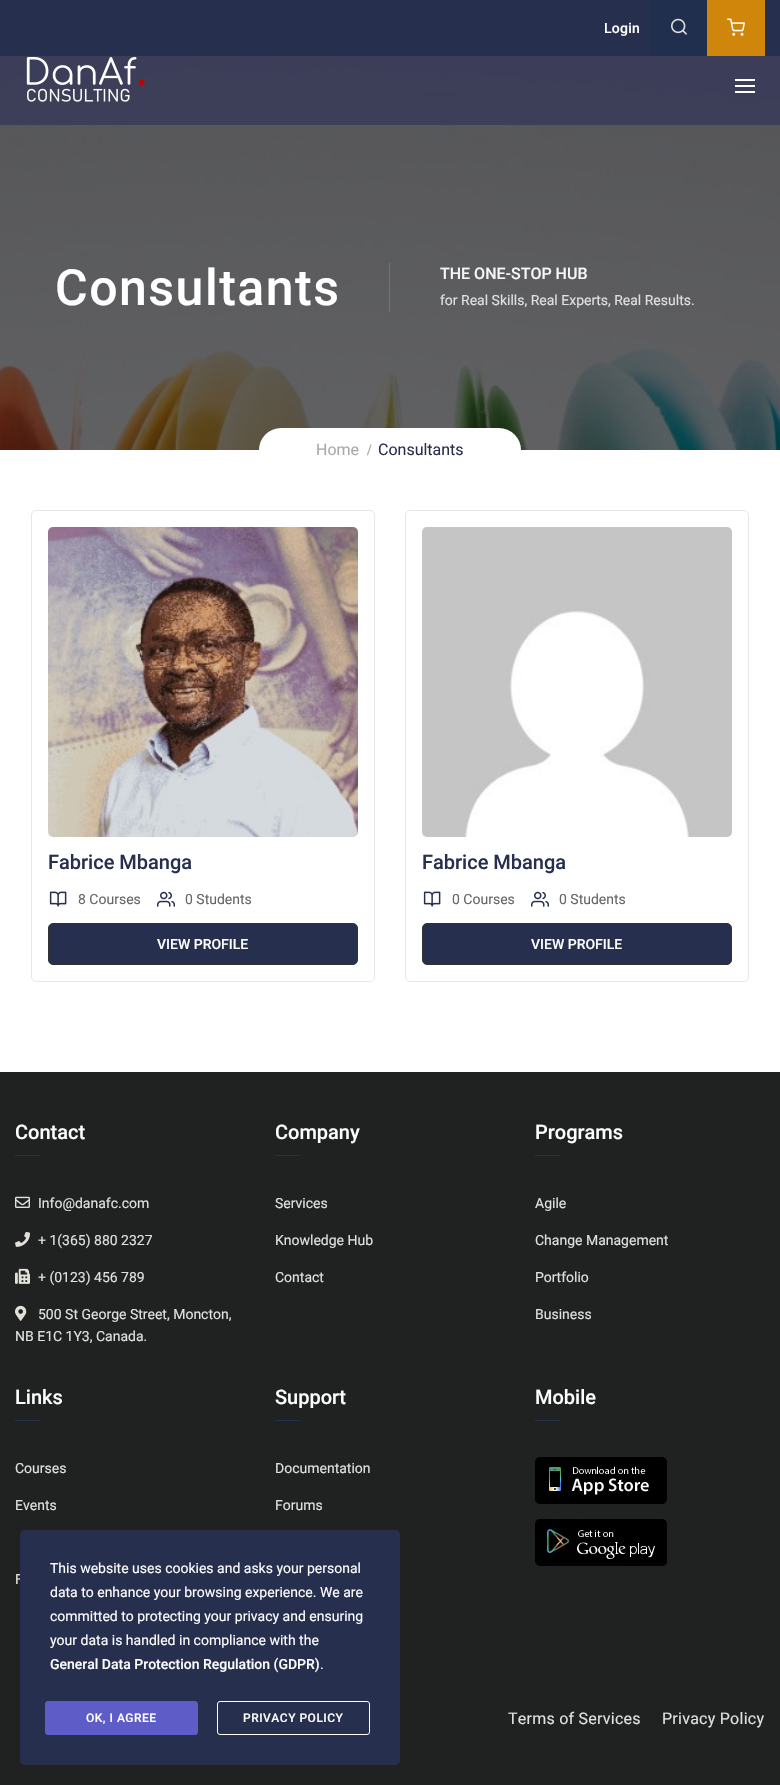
void draw(SkCanvas* canvas) {
  SkPaint paint;
  paint.setAntiAlias(true);
  auto face = [&](const char* family, int weight, float size, bool italic = false) {
    SkFontStyle style(weight, SkFontStyle::kNormal_Width,
      italic ? SkFontStyle::kItalic_Slant : SkFontStyle::kUpright_Slant);
    SkFont result(fontMgr->matchFamilyStyle(family, style), size);
    result.setSubpixel(true);
    return result;
  };
  auto writeSpaced = [&](const char* s, float x, float y, const SkFont& font, const SkPaint& ink, float letter, float word) {
    std::vector<SkGlyphID> glyphs(font.countText(s, strlen(s), SkTextEncoding::kUTF8));
    std::vector<float> xs(glyphs.size());
    font.textToGlyphs(s, strlen(s), SkTextEncoding::kUTF8, glyphs);
    font.getXPos(glyphs, xs, x);
    float extra = 0;
    for (size_t i = 0; i < glyphs.size(); i++) {
      xs[i] += extra;
      extra += letter + word * (glyphs[i] == font.unicharToGlyph(' '));
    }
    canvas->drawTextBlob(SkTextBlob::MakeFromPosHGlyphs(glyphs, xs, y, font), 0, 0, ink);
  };
  auto paste = [&](const char* path, float x, float y, float w, float h) {
    auto image = SkImages::DeferredFromEncodedData(SkData::MakeFromFileName(path));
    canvas->drawImageRect(image, SkRect::MakeXYWH(x, y, w, h), SkSamplingOptions());
  };
  canvas->clear(0xffffffff);
  paste("img/4.png", 0, 56, 780, 394);
  {
    const struct { float x, y, w, h; SkColor color; } items[] = {
      {0, 56, 780, 69, 0xcc363758},
      {0, 0, 780, 56, 0xff26304e},
      {651, 0, 56, 56, 0xff1f2f4d},
    };
    for (auto [x, y, w, h, color] : items) {
      paint.setColor(color);
      canvas->drawRect(SkRect::MakeXYWH(x, y, w, h), paint);
    }
  }
  paste("img/1.png", 671, 18, 16, 17);
  paint.setColor(0xffcf860a);
  canvas->drawRect(SkRect::MakeXYWH(707, 0, 58, 56), paint);
  paste("img/2.png", 727, 18, 18, 18);
  paste("img/3.png", 26, 56, 119, 46);
  {
    const struct { float x, y, w, h; SkColor color; } items[] = {
      {735, 79, 20, 2, 0xffffffff},
      {735, 85, 20, 2, 0xffffffff},
      {735, 91, 20, 2, 0xffffffff},
      {389, 263, 1, 49, 0xff757577},
    };
    for (auto [x, y, w, h, color] : items) {
      paint.setColor(color);
      canvas->drawRect(SkRect::MakeXYWH(x, y, w, h), paint);
    }
  }
  paint.setColor(0xffffffff);
  canvas->drawRoundRect(SkRect::MakeXYWH(259, 428, 262, 44), 22, 22, paint);
  paint.setStroke(true);
  paint.setStrokeWidth(1);
  paint.setColor(0xffe7e7e7);
  canvas->drawRoundRect(SkRect::MakeXYWH(31.5f, 510.5f, 343, 471), 4.5f, 4.5f, paint);
  paste("img/5.png", 48, 527, 310, 310);
  paste("img/6.png", 49, 891, 18, 16);
  paste("img/7.png", 157, 891, 18, 16);
  paint.setStroke(false);
  paint.setColor(0xff26304e);
  canvas->drawRoundRect(SkRect::MakeXYWH(48.5f, 923.5f, 309, 41), 4.5f, 4.5f, paint);
  paint.setStroke(true);
  paint.setColor(0xff333333);
  canvas->drawRoundRect(SkRect::MakeXYWH(48.5f, 923.5f, 309, 41), 4.5f, 4.5f, paint);
  paint.setColor(0xffe7e7e7);
  canvas->drawRoundRect(SkRect::MakeXYWH(405.5f, 510.5f, 343, 471), 4.5f, 4.5f, paint);
  paste("img/8.png", 422, 527, 310, 310);
  paste("img/6.png", 423, 891, 18, 16);
  paste("img/7.png", 531, 891, 18, 16);
  paint.setStroke(false);
  paint.setColor(0xff26304e);
  canvas->drawRoundRect(SkRect::MakeXYWH(422.5f, 923.5f, 309, 41), 4.5f, 4.5f, paint);
  paint.setStroke(true);
  paint.setColor(0xff333333);
  canvas->drawRoundRect(SkRect::MakeXYWH(422.5f, 923.5f, 309, 41), 4.5f, 4.5f, paint);
  paint.setStroke(false);
  paint.setColor(0xff202121);
  canvas->drawRect(SkRect::MakeXYWH(0, 1072, 780, 713), paint);
  paint.setColor(0xff26304e);
  canvas->drawRect(SkRect::MakeXYWH(15, 1155, 25, 1), paint);
  paste("img/9.png", 15, 1196, 15, 12);
  paste("img/10.png", 15, 1231, 15, 16);
  paste("img/11.png", 15, 1268, 15, 16);
  paste("img/12.png", 15, 1305, 12, 16);
  {
    const struct { float x, y, w, h; SkColor color; } items[] = {
      {275, 1155, 25, 1, 0xff26304e},
      {535, 1155, 25, 1, 0xff26304e},
      {15, 1420, 25, 1, 0xff26304e},
      {275, 1420, 25, 1, 0xff26304e},
      {535, 1420, 25, 1, 0xff26304e},
    };
    for (auto [x, y, w, h, color] : items) {
      paint.setColor(color);
      canvas->drawRect(SkRect::MakeXYWH(x, y, w, h), paint);
    }
  }
  paste("img/13.png", 535, 1457, 132, 47);
  paste("img/14.png", 535, 1519, 132, 47);
  auto f0 = face("Roboto", 500, 14);
  paint.setColor(0xffffffff);
  writeSpaced("Login", 604, 33, f0, paint, 0.25f, 0);
  auto f1 = face("Roboto", 500, 50);
  writeSpaced("Consultants", 55, 305, f1, paint, 1.5f, 0);
  auto f2 = face("Roboto", 500, 16);
  paint.setColor(0xfff6f6f7);
  canvas->drawString("THE ONE-STOP HUB", 440, 279, f2, paint);
  auto f3 = face("Roboto", 400, 14);
  paint.setColor(0xffe0e0e0);
  canvas->drawString("for Real Skills, Real Experts, Real Results.", 440, 305, f3, paint);
  auto f4 = face("Roboto", 400, 16);
  paint.setColor(0xffa9a9a9);
  canvas->drawString("Home", 316, 455, f4, paint);
  auto f5 = face("Liberation Serif", 700, 16);
  canvas->drawString("/", 367, 455, f5, paint);
  paint.setColor(0xff26304e);
  canvas->drawString("Consultants", 378, 455, f4, paint);
  auto f6 = face("Roboto", 500, 20);
  canvas->drawString("Fabrice Mbanga", 48, 869, f6, paint);
  paint.setColor(0xff666666);
  canvas->drawString("8 Courses", 78, 904, f3, paint);
  canvas->drawString("0 Students", 185, 904, f3, paint);
  paint.setColor(0xffffffff);
  canvas->drawString("VIEW PROFILE", 157, 949, f0, paint);
  paint.setColor(0xff26304e);
  canvas->drawString("Fabrice Mbanga", 422, 869, f6, paint);
  paint.setColor(0xff666666);
  canvas->drawString("0 Courses", 452, 904, f3, paint);
  canvas->drawString("0 Students", 559, 904, f3, paint);
  paint.setColor(0xffffffff);
  canvas->drawString("VIEW PROFILE", 531, 949, f0, paint);
  canvas->drawString("Contact", 15, 1139, f6, paint);
  paint.setColor(0xffe0e0e0);
  {
    const struct { const char* s; float x, y; } items[] = {
      {"Info@danafc.com", 38, 1208},
      {"+ 1(365) 880 2327", 38, 1245},
      {"+ (0123) 456 789", 38, 1282},
      {"500 St George Street, Moncton,", 38, 1319},
      {"NB E1C 1Y3, Canada.", 15, 1341},
    };
    for (auto [s, x, y] : items) {
      canvas->drawString(s, x, y, f3, paint);
    }
  }
  paint.setColor(0xffffffff);
  canvas->drawString("Company", 275, 1139, f6, paint);
  paint.setColor(0xffe0e0e0);
  {
    const struct { const char* s; float x, y; } items[] = {
      {"Services", 275, 1208},
      {"Knowledge Hub", 275, 1245},
      {"Contact", 275, 1282},
    };
    for (auto [s, x, y] : items) {
      canvas->drawString(s, x, y, f3, paint);
    }
  }
  paint.setColor(0xffffffff);
  canvas->drawString("Programs", 535, 1139, f6, paint);
  paint.setColor(0xffe0e0e0);
  {
    const struct { const char* s; float x, y; } items[] = {
      {"Agile", 535, 1208},
      {"Change Management", 535, 1245},
      {"Portfolio", 535, 1282},
      {"Business", 535, 1319},
    };
    for (auto [s, x, y] : items) {
      canvas->drawString(s, x, y, f3, paint);
    }
  }
  paint.setColor(0xffffffff);
  canvas->drawString("Links", 15, 1404, f6, paint);
  paint.setColor(0xffe0e0e0);
  {
    const struct { const char* s; float x, y; } items[] = {
      {"Courses", 15, 1473},
      {"Events", 15, 1510},
      {"F", 15, 1584},
    };
    for (auto [s, x, y] : items) {
      canvas->drawString(s, x, y, f3, paint);
    }
  }
  paint.setColor(0xffffffff);
  canvas->drawString("Support", 275, 1404, f6, paint);
  paint.setColor(0xffe0e0e0);
  canvas->drawString("Documentation", 275, 1473, f3, paint);
  canvas->drawString("Forums", 275, 1510, f3, paint);
  paint.setColor(0xffffffff);
  canvas->drawString("Mobile", 535, 1404, f6, paint);
  paint.setColor(0xffe0e0e0);
  writeSpaced("Terms of Services", 508, 1724, f4, paint, 0.25f, 0);
  writeSpaced("Privacy Policy", 662, 1724, f4, paint, 0.25f, 0);
  paint.setColor(0xff26304e);
  canvas->drawRoundRect(SkRect::MakeXYWH(20, 1530, 380, 235), 5, 5, paint);
  paint.setColor(0xffffffff);
  {
    const struct { const char* s; float x, y; } items[] = {
      {"This website uses cookies and asks your personal", 50, 1573},
      {"data to enhance your browsing experience. We are", 50, 1597},
      {"committed to protecting your privacy and ensuring", 50, 1621},
      {"your data is handled in compliance with the", 50, 1645},
    };
    for (auto [s, x, y] : items) {
      canvas->drawString(s, x, y, f3, paint);
    }
  }
  canvas->drawString("General Data Protection Regulation (GDPR)", 50, 1669, f0, paint);
  canvas->drawString(".", 320, 1669, f3, paint);
  paint.setColor(0xff5e5cc7);
  canvas->drawRoundRect(SkRect::MakeXYWH(45.5f, 1701.5f, 152, 33), 2.5f, 2.5f, paint);
  paint.setStroke(true);
  canvas->drawRoundRect(SkRect::MakeXYWH(45.5f, 1701.5f, 152, 33), 2.5f, 2.5f, paint);
  auto f7 = face("Roboto", 500, 12);
  paint.setStroke(false);
  paint.setColor(0xffffffff);
  writeSpaced("OK, I AGREE", 86, 1722, f7, paint, 0.5f, 0);
  paint.setStroke(true);
  canvas->drawRoundRect(SkRect::MakeXYWH(217.5f, 1701.5f, 152, 33), 2.5f, 2.5f, paint);
  paint.setStroke(false);
  writeSpaced("PRIVACY POLICY", 243, 1722, f7, paint, 0.5f, 0);
}
